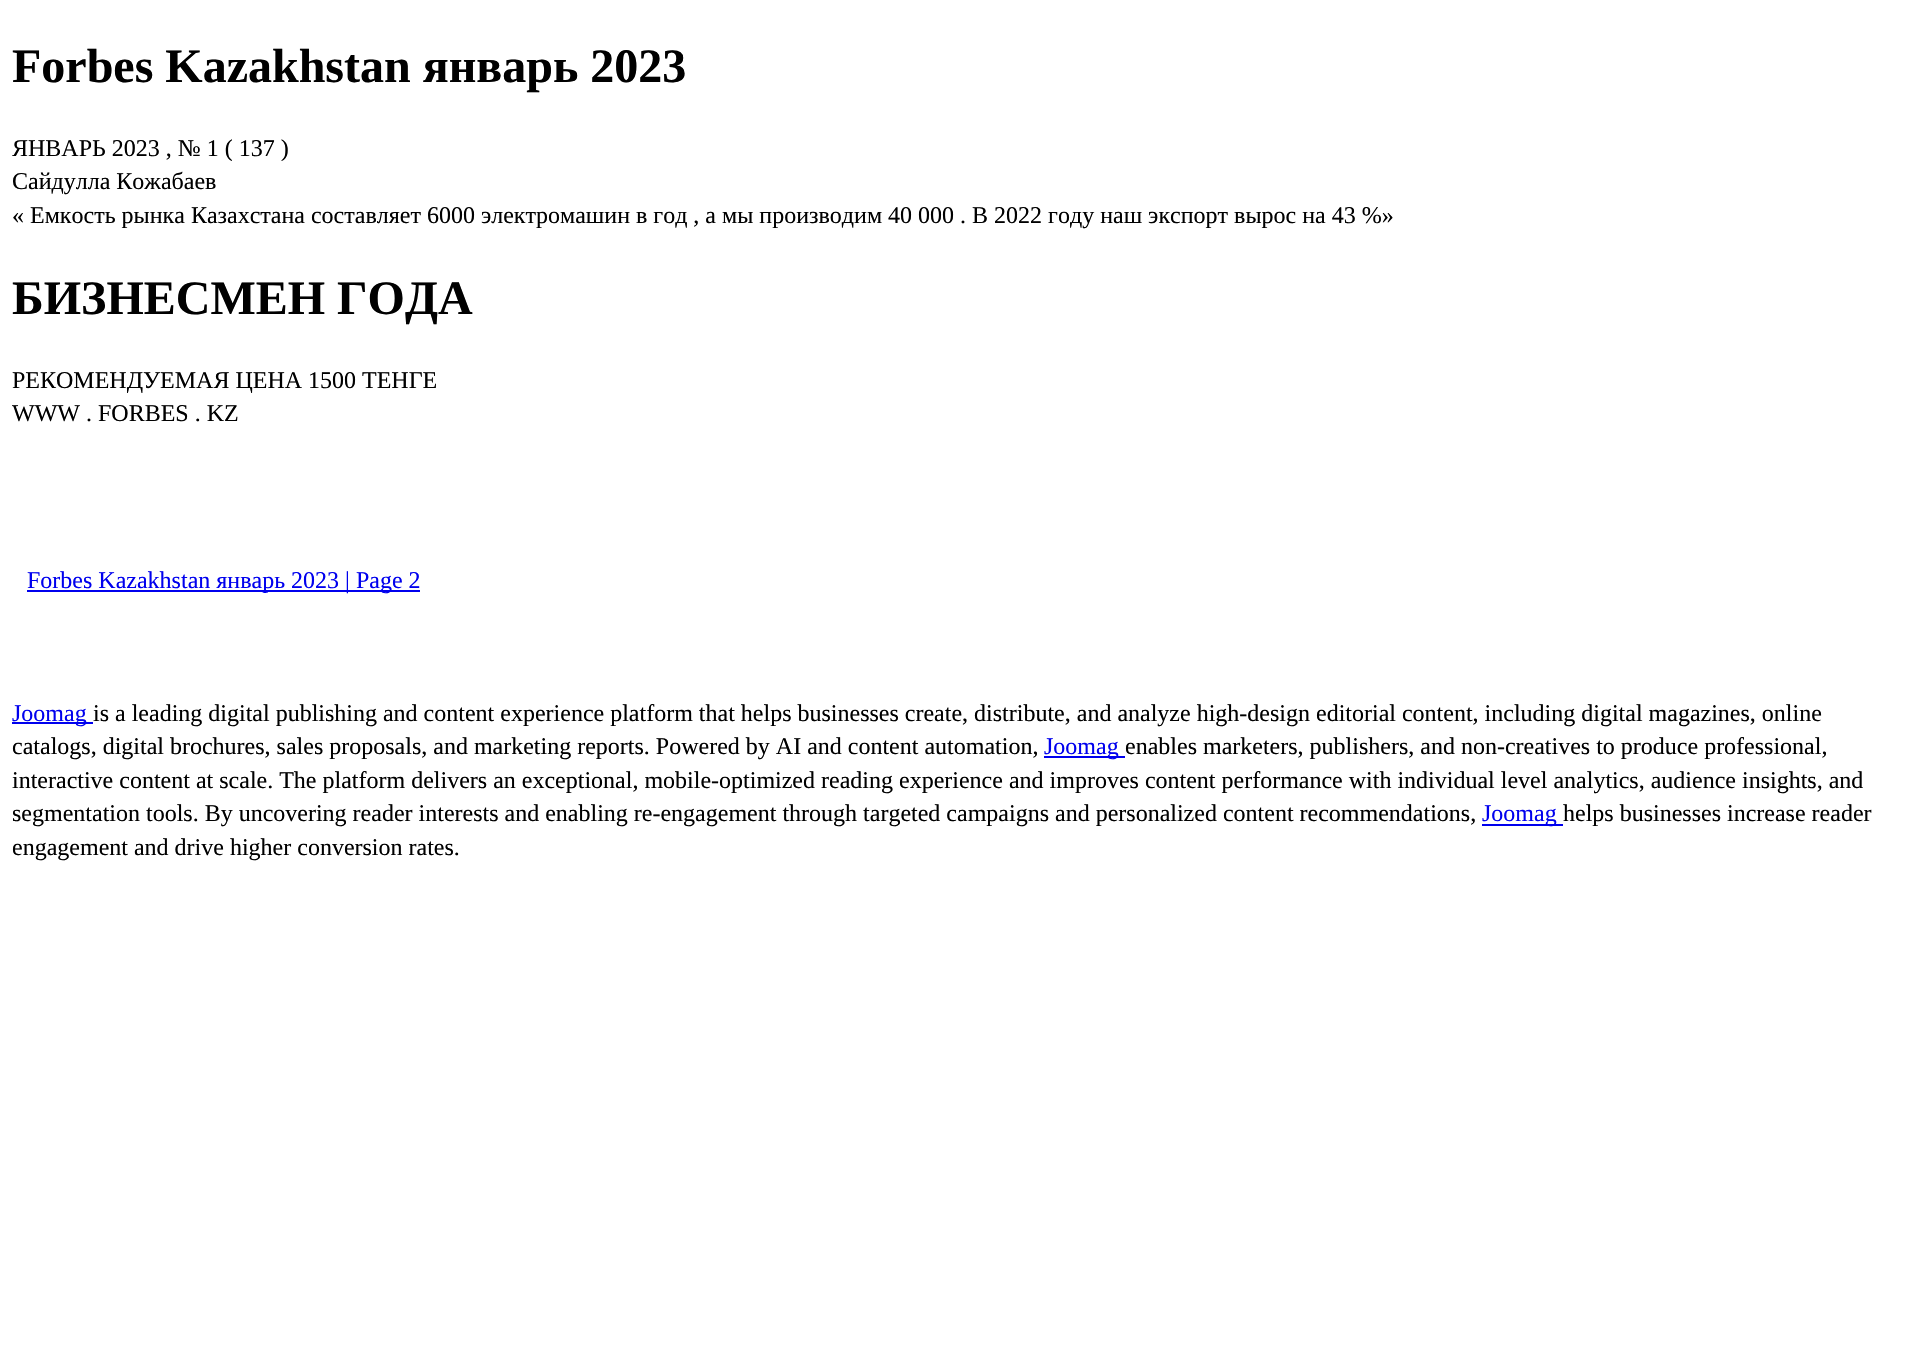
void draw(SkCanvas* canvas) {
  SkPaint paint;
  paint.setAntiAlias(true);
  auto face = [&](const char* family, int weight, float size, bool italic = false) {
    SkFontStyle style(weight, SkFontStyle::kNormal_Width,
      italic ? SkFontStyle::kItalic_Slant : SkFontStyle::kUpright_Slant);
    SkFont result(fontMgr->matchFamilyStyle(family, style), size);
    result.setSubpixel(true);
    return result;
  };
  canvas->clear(0xffffffff);
  {
    const struct { float x, y, w, h; SkColor color; } items[] = {
      {27, 590, 393, 2, 0xff0000ee},
      {12, 722, 81, 2, 0xff0000ee},
      {1044, 756, 81, 2, 0xff0000ee},
      {1482, 824, 81, 2, 0xff0000ee},
    };
    for (auto [x, y, w, h, color] : items) {
      paint.setColor(color);
      canvas->drawRect(SkRect::MakeXYWH(x, y, w, h), paint);
    }
  }
  auto f0 = face("Liberation Serif", 700, 48);
  paint.setColor(0xff000000);
  canvas->drawString("Forbes Kazakhstan январь 2023", 12, 82, f0, paint);
  auto f1 = face("Liberation Serif", 400, 24);
  {
    const struct { const char* s; float x, y; } items[] = {
      {"ЯНВАРЬ 2023 , № 1 ( 137 )", 12, 156},
      {"Сайдулла Кожабаев", 12, 189},
      {"« Емкость рынка Казахстана составляет 6000 электромашин в год , а мы производим 40 000 . В 2022 году наш экспорт вырос на 43 %»", 12, 223},
    };
    for (auto [s, x, y] : items) {
      canvas->drawString(s, x, y, f1, paint);
    }
  }
  canvas->drawString("БИЗНЕСМЕН ГОДА", 12, 314, f0, paint);
  canvas->drawString("РЕКОМЕНДУЕМАЯ ЦЕНА 1500 ТЕНГЕ", 12, 388, f1, paint);
  canvas->drawString("WWW . FORBES . KZ", 12, 421, f1, paint);
  paint.setColor(0xff0000ee);
  canvas->drawString("Forbes Kazakhstan январь 2023 | Page 2", 27, 588, f1, paint);
  canvas->drawString("Joomag", 12, 721, f1, paint);
  paint.setColor(0xff000000);
  canvas->drawString("is a leading digital publishing and content experience platform that helps businesses create, distribute, and analyze high-design editorial content, including digital magazines, online", 93, 721, f1, paint);
  canvas->drawString("catalogs, digital brochures, sales proposals, and marketing reports. Powered by AI and content automation,", 12, 754, f1, paint);
  paint.setColor(0xff0000ee);
  canvas->drawString("Joomag", 1044, 754, f1, paint);
  paint.setColor(0xff000000);
  {
    const struct { const char* s; float x, y; } items[] = {
      {"enables marketers, publishers, and non-creatives to produce professional,", 1125, 754},
      {"interactive content at scale. The platform delivers an exceptional, mobile-optimized reading experience and improves content performance with individual level analytics, audience insights, and", 12, 788},
      {"segmentation tools. By uncovering reader interests and enabling re-engagement through targeted campaigns and personalized content recommendations,", 12, 821},
    };
    for (auto [s, x, y] : items) {
      canvas->drawString(s, x, y, f1, paint);
    }
  }
  paint.setColor(0xff0000ee);
  canvas->drawString("Joomag", 1482, 821, f1, paint);
  paint.setColor(0xff000000);
  canvas->drawString("helps businesses increase reader", 1563, 821, f1, paint);
  canvas->drawString("engagement and drive higher conversion rates.", 12, 855, f1, paint);
}
